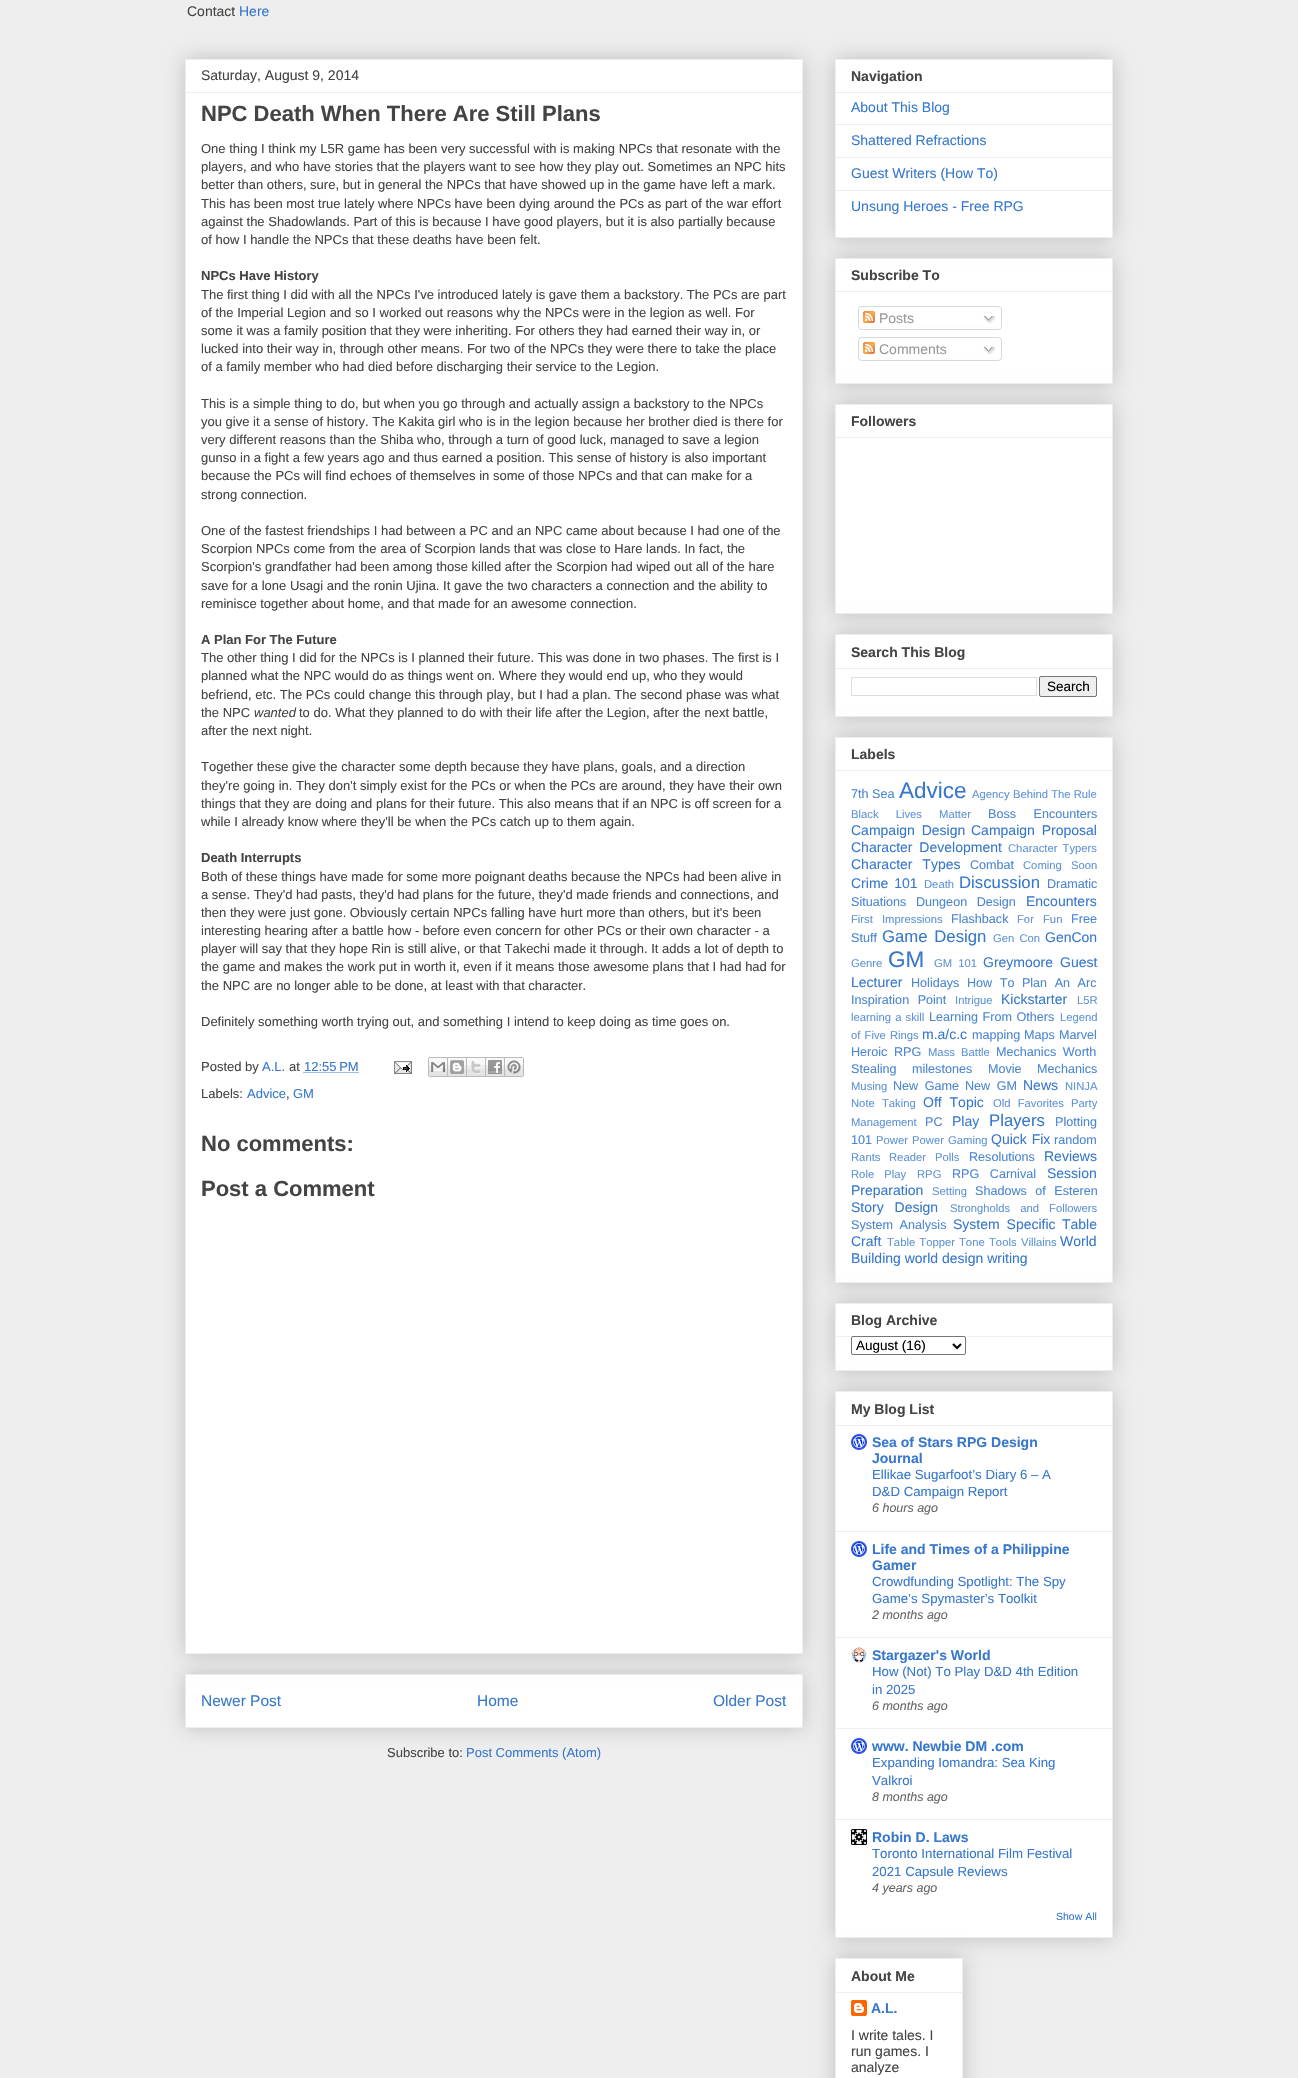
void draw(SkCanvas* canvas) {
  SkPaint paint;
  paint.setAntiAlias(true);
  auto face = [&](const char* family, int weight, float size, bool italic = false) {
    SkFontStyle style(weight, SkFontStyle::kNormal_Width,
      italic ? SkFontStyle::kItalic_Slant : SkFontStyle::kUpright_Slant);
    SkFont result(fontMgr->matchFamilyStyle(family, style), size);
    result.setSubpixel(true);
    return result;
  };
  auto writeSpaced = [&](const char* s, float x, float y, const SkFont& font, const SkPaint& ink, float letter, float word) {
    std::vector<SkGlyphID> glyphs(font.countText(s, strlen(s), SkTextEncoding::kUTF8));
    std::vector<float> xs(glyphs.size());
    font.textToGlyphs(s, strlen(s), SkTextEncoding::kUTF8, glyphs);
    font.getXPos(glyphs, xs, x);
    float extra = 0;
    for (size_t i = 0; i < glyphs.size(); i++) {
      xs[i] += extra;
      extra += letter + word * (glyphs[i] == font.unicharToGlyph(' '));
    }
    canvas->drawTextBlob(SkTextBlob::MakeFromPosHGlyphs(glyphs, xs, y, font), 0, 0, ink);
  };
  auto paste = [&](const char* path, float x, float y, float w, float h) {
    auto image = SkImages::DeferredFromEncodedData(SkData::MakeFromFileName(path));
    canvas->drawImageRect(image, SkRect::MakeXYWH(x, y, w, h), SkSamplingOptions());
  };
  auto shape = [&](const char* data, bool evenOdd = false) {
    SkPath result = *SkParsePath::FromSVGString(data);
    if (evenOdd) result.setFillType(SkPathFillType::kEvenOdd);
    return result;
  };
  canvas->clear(0xffeeeeee);
  paint.setColor(0x33000000);
  paint.setMaskFilter(SkMaskFilter::MakeBlur(kNormal_SkBlurStyle, 10));
  canvas->drawRect(SkRect::MakeXYWH(185, 1674, 618, 54), paint);
  paint.setMaskFilter(nullptr);
  paint.setColor(0xffffffff);
  canvas->drawRect(SkRect::MakeXYWH(185.5f, 1674.5f, 617, 53), paint);
  paint.setStroke(true);
  paint.setStrokeWidth(1);
  paint.setColor(0xffeeeeee);
  canvas->drawRect(SkRect::MakeXYWH(185.5f, 1674.5f, 617, 53), paint);
  paint.setStroke(false);
  paint.setColor(0x33000000);
  paint.setMaskFilter(SkMaskFilter::MakeBlur(kNormal_SkBlurStyle, 10));
  canvas->drawRect(SkRect::MakeXYWH(185, 59, 618, 1595), paint);
  paint.setMaskFilter(nullptr);
  paint.setColor(0xffffffff);
  canvas->drawRect(SkRect::MakeXYWH(185.5f, 59.5f, 617, 1594), paint);
  paint.setStroke(true);
  paint.setColor(0xffeeeeee);
  canvas->drawRect(SkRect::MakeXYWH(185.5f, 59.5f, 617, 1594), paint);
  paint.setStroke(false);
  canvas->drawRect(SkRect::MakeXYWH(186, 92, 616, 1), paint);
  paint.setStroke(true);
  paint.setColor(0xff3778cd);
  paint.setPathEffect(SkDashPathEffect::Make({{1, 1}}, 0));
  canvas->drawPath(shape("M303.5 1072.5H358.5"), paint);
  paint.setPathEffect(nullptr);
  paste("img/1.png", 394, 1061, 18, 13);
  paste("img/2.png", 428, 1057, 20, 20);
  paste("img/3.png", 448, 1057, 19, 20);
  paste("img/4.png", 467, 1057, 19, 20);
  paste("img/5.png", 486, 1057, 19, 20);
  paste("img/6.png", 505, 1057, 19, 20);
  paint.setStroke(false);
  paint.setColor(0x33000000);
  paint.setMaskFilter(SkMaskFilter::MakeBlur(kNormal_SkBlurStyle, 10));
  canvas->drawRect(SkRect::MakeXYWH(835, 258, 278, 126), paint);
  paint.setMaskFilter(nullptr);
  paint.setColor(0xffffffff);
  canvas->drawRect(SkRect::MakeXYWH(835.5f, 258.5f, 277, 125), paint);
  paint.setStroke(true);
  paint.setColor(0xffeeeeee);
  canvas->drawRect(SkRect::MakeXYWH(835.5f, 258.5f, 277, 125), paint);
  paint.setStroke(false);
  paint.setColor(0x33000000);
  paint.setMaskFilter(SkMaskFilter::MakeBlur(kNormal_SkBlurStyle, 10));
  canvas->drawRect(SkRect::MakeXYWH(835, 59, 278, 179), paint);
  paint.setMaskFilter(nullptr);
  paint.setColor(0xffffffff);
  canvas->drawRect(SkRect::MakeXYWH(835.5f, 59.5f, 277, 178), paint);
  paint.setStroke(true);
  paint.setColor(0xffeeeeee);
  canvas->drawRect(SkRect::MakeXYWH(835.5f, 59.5f, 277, 178), paint);
  paint.setStroke(false);
  {
    const struct { float x, y, w, h; SkColor color; } items[] = {
      {836, 92, 276, 1, 0xffeeeeee},
      {836, 124, 276, 1, 0xffeeeeee},
      {836, 157, 276, 1, 0xffeeeeee},
      {836, 190, 276, 1, 0xffeeeeee},
      {836, 291, 276, 1, 0xffeeeeee},
    };
    for (auto [x, y, w, h, color] : items) {
      paint.setColor(color);
      canvas->drawRect(SkRect::MakeXYWH(x, y, w, h), paint);
    }
  }
  paste("img/7.png", 858, 306, 144, 21);
  paste("img/8.png", 863, 311, 12, 12);
  paste("img/9.png", 983, 315, 13, 9);
  paste("img/10.png", 858, 327, 144, 3);
  paste("img/7.png", 858, 337, 144, 21);
  paste("img/8.png", 863, 342, 12, 12);
  paste("img/9.png", 983, 346, 13, 9);
  paste("img/10.png", 858, 358, 144, 3);
  paint.setColor(0x33000000);
  paint.setMaskFilter(SkMaskFilter::MakeBlur(kNormal_SkBlurStyle, 10));
  canvas->drawRect(SkRect::MakeXYWH(835, 404, 278, 210), paint);
  paint.setMaskFilter(nullptr);
  paint.setColor(0xffffffff);
  canvas->drawRect(SkRect::MakeXYWH(835.5f, 404.5f, 277, 209), paint);
  paint.setStroke(true);
  paint.setColor(0xffeeeeee);
  canvas->drawRect(SkRect::MakeXYWH(835.5f, 404.5f, 277, 209), paint);
  paint.setStroke(false);
  canvas->drawRect(SkRect::MakeXYWH(836, 437, 276, 1), paint);
  paint.setColor(0x33000000);
  paint.setMaskFilter(SkMaskFilter::MakeBlur(kNormal_SkBlurStyle, 10));
  canvas->drawRect(SkRect::MakeXYWH(835, 634, 278, 83), paint);
  paint.setMaskFilter(nullptr);
  paint.setColor(0xffffffff);
  canvas->drawRect(SkRect::MakeXYWH(835.5f, 634.5f, 277, 82), paint);
  paint.setStroke(true);
  paint.setColor(0xffeeeeee);
  canvas->drawRect(SkRect::MakeXYWH(835.5f, 634.5f, 277, 82), paint);
  paint.setStroke(false);
  canvas->drawRect(SkRect::MakeXYWH(836, 668, 276, 1), paint);
  paint.setStroke(true);
  paint.setColor(0xffdddddd);
  canvas->drawRect(SkRect::MakeXYWH(851.5f, 677.5f, 185, 18), paint);
  paint.setStroke(false);
  paint.setColor(0xffefefef);
  canvas->drawRoundRect(SkRect::MakeXYWH(1039.5f, 676.5f, 57, 20), 1.5f, 1.5f, paint);
  paint.setStroke(true);
  paint.setColor(0xff767676);
  canvas->drawRoundRect(SkRect::MakeXYWH(1039.5f, 676.5f, 57, 20), 1.5f, 1.5f, paint);
  paint.setStroke(false);
  paint.setColor(0x33000000);
  paint.setMaskFilter(SkMaskFilter::MakeBlur(kNormal_SkBlurStyle, 10));
  canvas->drawRect(SkRect::MakeXYWH(835, 737, 278, 546), paint);
  paint.setMaskFilter(nullptr);
  paint.setColor(0xffffffff);
  canvas->drawRect(SkRect::MakeXYWH(835.5f, 737.5f, 277, 545), paint);
  paint.setStroke(true);
  paint.setColor(0xffeeeeee);
  canvas->drawRect(SkRect::MakeXYWH(835.5f, 737.5f, 277, 545), paint);
  paint.setStroke(false);
  canvas->drawRect(SkRect::MakeXYWH(836, 770, 276, 1), paint);
  paint.setColor(0x33000000);
  paint.setMaskFilter(SkMaskFilter::MakeBlur(kNormal_SkBlurStyle, 10));
  canvas->drawRect(SkRect::MakeXYWH(835, 1303, 278, 68), paint);
  paint.setMaskFilter(nullptr);
  paint.setColor(0xffffffff);
  canvas->drawRect(SkRect::MakeXYWH(835.5f, 1303.5f, 277, 67), paint);
  paint.setStroke(true);
  paint.setColor(0xffeeeeee);
  canvas->drawRect(SkRect::MakeXYWH(835.5f, 1303.5f, 277, 67), paint);
  paint.setStroke(false);
  canvas->drawRect(SkRect::MakeXYWH(836, 1336, 276, 1), paint);
  paint.setColor(0xffffffff);
  canvas->drawRoundRect(SkRect::MakeXYWH(851.5f, 1336.5f, 114, 18), 1.5f, 1.5f, paint);
  paint.setStroke(true);
  paint.setColor(0xff767676);
  canvas->drawRoundRect(SkRect::MakeXYWH(851.5f, 1336.5f, 114, 18), 1.5f, 1.5f, paint);
  paint.setStrokeWidth(2);
  paint.setColor(0xff000000);
  canvas->drawPath(shape("M953 1344L957 1348L961 1344"), paint);
  paint.setStroke(false);
  paint.setColor(0x33000000);
  paint.setMaskFilter(SkMaskFilter::MakeBlur(kNormal_SkBlurStyle, 10));
  canvas->drawRect(SkRect::MakeXYWH(835, 1391, 278, 547), paint);
  paint.setMaskFilter(nullptr);
  paint.setColor(0xffffffff);
  canvas->drawRect(SkRect::MakeXYWH(835.5f, 1391.5f, 277, 546), paint);
  paint.setStroke(true);
  paint.setStrokeWidth(1);
  paint.setColor(0xffeeeeee);
  canvas->drawRect(SkRect::MakeXYWH(835.5f, 1391.5f, 277, 546), paint);
  paint.setStroke(false);
  canvas->drawRect(SkRect::MakeXYWH(836, 1425, 276, 1), paint);
  paste("img/11.png", 851, 1434, 16, 16);
  canvas->drawRect(SkRect::MakeXYWH(836, 1531, 276, 1), paint);
  paste("img/11.png", 851, 1541, 16, 16);
  canvas->drawRect(SkRect::MakeXYWH(836, 1637, 276, 1), paint);
  paste("img/12.png", 851, 1647, 16, 16);
  canvas->drawRect(SkRect::MakeXYWH(836, 1728, 276, 1), paint);
  paste("img/11.png", 851, 1738, 16, 16);
  canvas->drawRect(SkRect::MakeXYWH(836, 1819, 276, 1), paint);
  paste("img/13.png", 851, 1829, 16, 16);
  paint.setColor(0x33000000);
  paint.setMaskFilter(SkMaskFilter::MakeBlur(kNormal_SkBlurStyle, 10));
  canvas->drawRect(SkRect::MakeXYWH(835, 1958, 128, 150), paint);
  paint.setMaskFilter(nullptr);
  paint.setColor(0xffffffff);
  canvas->drawRect(SkRect::MakeXYWH(835.5f, 1958.5f, 127, 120), paint);
  paint.setStroke(true);
  paint.setColor(0xffeeeeee);
  canvas->drawRect(SkRect::MakeXYWH(835.5f, 1958.5f, 127, 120), paint);
  paint.setStroke(false);
  canvas->drawRect(SkRect::MakeXYWH(836, 1992, 126, 1), paint);
  paste("img/14.png", 851, 2000, 16, 16);
  auto f0 = face("Liberation Sans", 400, 14);
  paint.setColor(0xff444444);
  canvas->drawString("Contact", 187, 16, f0, paint);
  paint.setColor(0xff3778cd);
  canvas->drawString("Here", 239, 16, f0, paint);
  paint.setColor(0xff444444);
  canvas->drawString("Saturday, August 9, 2014", 201, 80, f0, paint);
  auto f1 = face("Liberation Sans", 700, 22);
  canvas->drawString("NPC Death When There Are Still Plans", 201, 121, f1, paint);
  auto f2 = face("Liberation Sans", 400, 13);
  {
    const struct { const char* s; float x, y; } items[] = {
      {"One thing I think my L5R game has been very successful with is making NPCs that resonate with the", 201, 153},
      {"players, and who have stories that the players want to see how they play out. Sometimes an NPC hits", 201, 171},
      {"better than others, sure, but in general the NPCs that have showed up in the game have left a mark.", 201, 189},
      {"This has been most true lately where NPCs have been dying around the PCs as part of the war effort", 201, 208},
      {"against the Shadowlands. Part of this is because I have good players, but it is also partially because", 201, 226},
      {"of how I handle the NPCs that these deaths have been felt.", 201, 244},
    };
    for (auto [s, x, y] : items) {
      canvas->drawString(s, x, y, f2, paint);
    }
  }
  auto f3 = face("Liberation Sans", 700, 13);
  canvas->drawString("NPCs Have History", 201, 280, f3, paint);
  {
    const struct { const char* s; float x, y; } items[] = {
      {"The first thing I did with all the NPCs I've introduced lately is gave them a backstory. The PCs are part", 201, 299},
      {"of the Imperial Legion and so I worked out reasons why the NPCs were in the legion as well. For", 201, 317},
      {"some it was a family position that they were inheriting. For others they had earned their way in, or", 201, 335},
      {"lucked into their way in, through other means. For two of the NPCs they were there to take the place", 201, 353},
      {"of a family member who had died before discharging their service to the Legion.", 201, 371},
      {"This is a simple thing to do, but when you go through and actually assign a backstory to the NPCs", 201, 408},
      {"you give it a sense of history. The Kakita girl who is in the legion because her brother died is there for", 201, 426},
      {"very different reasons than the Shiba who, through a turn of good luck, managed to save a legion", 201, 444},
      {"gunso in a fight a few years ago and thus earned a position. This sense of history is also important", 201, 462},
      {"because the PCs will find echoes of themselves in some of those NPCs and that can make for a", 201, 480},
      {"strong connection.", 201, 499},
      {"One of the fastest friendships I had between a PC and an NPC came about because I had one of the", 201, 535},
      {"Scorpion NPCs come from the area of Scorpion lands that was close to Hare lands. In fact, the", 201, 553},
      {"Scorpion's grandfather had been among those killed after the Scorpion had wiped out all of the hare", 201, 571},
      {"save for a lone Usagi and the ronin Ujina. It gave the two characters a connection and the ability to", 201, 590},
      {"reminisce together about home, and that made for an awesome connection.", 201, 608},
    };
    for (auto [s, x, y] : items) {
      canvas->drawString(s, x, y, f2, paint);
    }
  }
  canvas->drawString("A Plan For The Future", 201, 644, f3, paint);
  {
    const struct { const char* s; float x, y; } items[] = {
      {"The other thing I did for the NPCs is I planned their future. This was done in two phases. The first is I", 201, 662},
      {"planned what the NPC would do as things went on. Where they would end up, who they would", 201, 680},
      {"befriend, etc. The PCs could change this through play, but I had a plan. The second phase was what", 201, 699},
      {"the NPC", 201, 717},
    };
    for (auto [s, x, y] : items) {
      canvas->drawString(s, x, y, f2, paint);
    }
  }
  auto f4 = face("Liberation Sans", 400, 13, true);
  canvas->drawString("wanted", 254, 717, f4, paint);
  {
    const struct { const char* s; float x, y; } items[] = {
      {"to do. What they planned to do with their life after the Legion, after the next battle,", 299, 717},
      {"after the next night.", 201, 735},
      {"Together these give the character some depth because they have plans, goals, and a direction", 201, 771},
      {"they're going in. They don't simply exist for the PCs or when the PCs are around, they have their own", 201, 790},
      {"things that they are doing and plans for their future. This also means that if an NPC is off screen for a", 201, 808},
      {"while I already know where they'll be when the PCs catch up to them again.", 201, 826},
    };
    for (auto [s, x, y] : items) {
      canvas->drawString(s, x, y, f2, paint);
    }
  }
  canvas->drawString("Death Interrupts", 201, 862, f3, paint);
  {
    const struct { const char* s; float x, y; } items[] = {
      {"Both of these things have made for some more poignant deaths because the NPCs had been alive in", 201, 881},
      {"a sense. They'd had pasts, they'd had plans for the future, they'd made friends and connections, and", 201, 899},
      {"then they were just gone. Obviously certain NPCs falling have hurt more than others, but it's been", 201, 917},
      {"interesting hearing after a battle how - before even concern for other PCs or their own character - a", 201, 935},
      {"player will say that they hope Rin is still alive, or that Takechi made it through. It adds a lot of depth to", 201, 953},
      {"the game and makes the work put in worth it, even if it means those awesome plans that I had had for", 201, 971},
      {"the NPC are no longer able to be done, at least with that character.", 201, 990},
      {"Definitely something worth trying out, and something I intend to keep doing as time goes on.", 201, 1026},
      {"Posted by", 201, 1071},
    };
    for (auto [s, x, y] : items) {
      canvas->drawString(s, x, y, f2, paint);
    }
  }
  paint.setColor(0xff3778cd);
  canvas->drawString("A.L.", 262, 1071, f2, paint);
  paint.setColor(0xff444444);
  canvas->drawString("at", 289, 1071, f2, paint);
  paint.setColor(0xff3778cd);
  canvas->drawString("12:55 PM", 304, 1071, f2, paint);
  paint.setColor(0xff444444);
  canvas->drawString("Labels:", 201, 1098, f2, paint);
  paint.setColor(0xff3778cd);
  canvas->drawString("Advice", 247, 1098, f2, paint);
  paint.setColor(0xff444444);
  canvas->drawString(",", 286, 1098, f2, paint);
  paint.setColor(0xff3778cd);
  canvas->drawString("GM", 293, 1098, f2, paint);
  paint.setColor(0xff444444);
  canvas->drawString("No comments:", 201, 1151, f1, paint);
  canvas->drawString("Post a Comment", 201, 1196, f1, paint);
  auto f5 = face("Liberation Sans", 400, 15.5f);
  paint.setColor(0xff3778cd);
  {
    const struct { const char* s; float x, y; } items[] = {
      {"Newer Post", 201, 1706},
      {"Home", 477, 1706},
      {"Older Post", 713, 1706},
    };
    for (auto [s, x, y] : items) {
      canvas->drawString(s, x, y, f5, paint);
    }
  }
  paint.setColor(0xff444444);
  canvas->drawString("Subscribe to:", 387, 1757, f2, paint);
  paint.setColor(0xff3778cd);
  canvas->drawString("Post Comments (Atom)", 466, 1757, f2, paint);
  auto f6 = face("Liberation Sans", 700, 14);
  paint.setColor(0xff444444);
  canvas->drawString("Navigation", 851, 81, f6, paint);
  paint.setColor(0xff3778cd);
  {
    const struct { const char* s; float x, y; } items[] = {
      {"About This Blog", 851, 112},
      {"Shattered Refractions", 851, 145},
      {"Guest Writers (How To)", 851, 178},
      {"Unsung Heroes - Free RPG", 851, 211},
    };
    for (auto [s, x, y] : items) {
      canvas->drawString(s, x, y, f0, paint);
    }
  }
  paint.setColor(0xff444444);
  canvas->drawString("Subscribe To", 851, 280, f6, paint);
  paint.setColor(0xff999999);
  canvas->drawString("Posts", 879, 323, f0, paint);
  canvas->drawString("Comments", 879, 354, f0, paint);
  paint.setColor(0xff444444);
  canvas->drawString("Followers", 851, 426, f6, paint);
  canvas->drawString("Search This Blog", 851, 657, f6, paint);
  auto f7 = face("Liberation Sans", 400, 13.5f);
  paint.setColor(0xff000000);
  canvas->drawString("Search", 1047, 691, f7, paint);
  paint.setColor(0xff444444);
  canvas->drawString("Labels", 851, 759, f6, paint);
  auto f8 = face("Liberation Sans", 400, 12.6f);
  paint.setColor(0xff4b86d2);
  canvas->drawString("7th Sea", 851, 798, f8, paint);
  auto f9 = face("Liberation Sans", 400, 22.5f);
  paint.setColor(0xff3778cd);
  canvas->drawString("Advice", 899, 798, f9, paint);
  auto f10 = face("Liberation Sans", 400, 11.25f);
  paint.setColor(0xff5f93d7);
  canvas->drawString("Agency", 972, 798, f10, paint);
  canvas->drawString("Behind The Rule", 1013, 798, f10, paint);
  writeSpaced("Black Lives Matter", 851, 818, f10, paint, 0, 14);
  paint.setColor(0xff4b86d2);
  writeSpaced("Boss Encounters", 988, 818, f8, paint, 0, 14);
  paint.setColor(0xff3778cd);
  {
    const struct { const char* s; float x, y; } items[] = {
      {"Campaign Design", 851, 835},
      {"Campaign Proposal", 971, 835},
      {"Character Development", 851, 852},
    };
    for (auto [s, x, y] : items) {
      writeSpaced(s, x, y, f0, paint, 0, 3);
    }
  }
  paint.setColor(0xff5f93d7);
  writeSpaced("Character Typers", 1008, 852, f10, paint, 0, 2);
  paint.setColor(0xff3778cd);
  writeSpaced("Character Types", 851, 869, f0, paint, 0, 6);
  paint.setColor(0xff4b86d2);
  canvas->drawString("Combat", 970, 869, f8, paint);
  paint.setColor(0xff5f93d7);
  writeSpaced("Coming Soon", 1023, 869, f10, paint, 0, 6);
  paint.setColor(0xff3778cd);
  writeSpaced("Crime 101", 851, 888, f0, paint, 0, 2);
  paint.setColor(0xff5f93d7);
  canvas->drawString("Death", 924, 888, f10, paint);
  auto f11 = face("Liberation Sans", 400, 16.75f);
  paint.setColor(0xff3778cd);
  canvas->drawString("Discussion", 959, 888, f11, paint);
  paint.setColor(0xff4b86d2);
  canvas->drawString("Dramatic", 1047, 888, f8, paint);
  canvas->drawString("Situations", 851, 906, f8, paint);
  writeSpaced("Dungeon Design", 916, 906, f8, paint, 0, 6);
  paint.setColor(0xff3778cd);
  canvas->drawString("Encounters", 1026, 906, f0, paint);
  paint.setColor(0xff5f93d7);
  writeSpaced("First Impressions", 851, 923, f10, paint, 0, 6);
  paint.setColor(0xff4b86d2);
  canvas->drawString("Flashback", 951, 923, f8, paint);
  paint.setColor(0xff5f93d7);
  writeSpaced("For Fun", 1017, 923, f10, paint, 0, 6);
  paint.setColor(0xff4b86d2);
  canvas->drawString("Free", 1071, 923, f8, paint);
  canvas->drawString("Stuff", 851, 942, f8, paint);
  paint.setColor(0xff3778cd);
  writeSpaced("Game Design", 882, 942, f11, paint, 0, 2);
  paint.setColor(0xff5f93d7);
  writeSpaced("Gen Con", 993, 942, f10, paint, 0, 2);
  paint.setColor(0xff3778cd);
  canvas->drawString("GenCon", 1045, 942, f0, paint);
  paint.setColor(0xff5f93d7);
  canvas->drawString("Genre", 851, 967, f10, paint);
  paint.setColor(0xff3778cd);
  canvas->drawString("GM", 888, 967, f9, paint);
  paint.setColor(0xff5f93d7);
  writeSpaced("GM 101", 934, 967, f10, paint, 0, 3);
  paint.setColor(0xff3778cd);
  {
    const struct { const char* s; float x, y; } items[] = {
      {"Greymoore", 983, 967},
      {"Guest", 1060, 967},
      {"Lecturer", 851, 987},
    };
    for (auto [s, x, y] : items) {
      canvas->drawString(s, x, y, f0, paint);
    }
  }
  paint.setColor(0xff4b86d2);
  canvas->drawString("Holidays", 911, 987, f8, paint);
  writeSpaced("How To Plan An Arc", 967, 987, f8, paint, 0, 4);
  writeSpaced("Inspiration Point", 851, 1004, f8, paint, 0, 5);
  paint.setColor(0xff5f93d7);
  canvas->drawString("Intrigue", 955, 1004, f10, paint);
  paint.setColor(0xff3778cd);
  canvas->drawString("Kickstarter", 1001, 1004, f0, paint);
  paint.setColor(0xff5f93d7);
  canvas->drawString("L5R", 1077, 1004, f10, paint);
  writeSpaced("learning a skill", 851, 1021, f10, paint, 0, 1);
  paint.setColor(0xff4b86d2);
  writeSpaced("Learning From Others", 929, 1021, f8, paint, 0, 1);
  paint.setColor(0xff5f93d7);
  canvas->drawString("Legend", 1060, 1021, f10, paint);
  writeSpaced("of Five Rings", 851, 1039, f10, paint, 0, 1);
  paint.setColor(0xff3778cd);
  canvas->drawString("m.a/c.c", 922, 1039, f0, paint);
  paint.setColor(0xff4b86d2);
  {
    const struct { const char* s; float x, y; } items[] = {
      {"mapping", 972, 1039},
      {"Maps", 1024, 1039},
      {"Marvel", 1059, 1039},
    };
    for (auto [s, x, y] : items) {
      canvas->drawString(s, x, y, f8, paint);
    }
  }
  writeSpaced("Heroic RPG", 851, 1056, f8, paint, 0, 3);
  paint.setColor(0xff5f93d7);
  writeSpaced("Mass Battle", 928, 1056, f10, paint, 0, 3);
  paint.setColor(0xff4b86d2);
  writeSpaced("Mechanics Worth", 996, 1056, f8, paint, 0, 3);
  canvas->drawString("Stealing", 851, 1073, f8, paint);
  canvas->drawString("milestones", 912, 1073, f8, paint);
  writeSpaced("Movie Mechanics", 988, 1073, f8, paint, 0, 12);
  paint.setColor(0xff5f93d7);
  canvas->drawString("Musing", 851, 1090, f10, paint);
  paint.setColor(0xff4b86d2);
  writeSpaced("New Game", 893, 1090, f8, paint, 0, 3);
  writeSpaced("New GM", 965, 1090, f8, paint, 0, 3);
  paint.setColor(0xff3778cd);
  canvas->drawString("News", 1023, 1090, f0, paint);
  paint.setColor(0xff5f93d7);
  canvas->drawString("NINJA", 1065, 1090, f10, paint);
  writeSpaced("Note Taking", 851, 1107, f10, paint, 0, 4);
  paint.setColor(0xff3778cd);
  writeSpaced("Off Topic", 923, 1107, f0, paint, 0, 4);
  paint.setColor(0xff5f93d7);
  writeSpaced("Old Favorites", 993, 1107, f10, paint, 0, 4);
  canvas->drawString("Party", 1071, 1107, f10, paint);
  canvas->drawString("Management", 851, 1126, f10, paint);
  paint.setColor(0xff4b86d2);
  canvas->drawString("PC", 925, 1126, f8, paint);
  paint.setColor(0xff3778cd);
  canvas->drawString("Play", 952, 1126, f0, paint);
  canvas->drawString("Players", 989, 1126, f11, paint);
  paint.setColor(0xff4b86d2);
  canvas->drawString("Plotting", 1055, 1126, f8, paint);
  canvas->drawString("101", 851, 1144, f8, paint);
  paint.setColor(0xff5f93d7);
  canvas->drawString("Power", 876, 1144, f10, paint);
  writeSpaced("Power Gaming", 912, 1144, f10, paint, 0, 1);
  paint.setColor(0xff3778cd);
  writeSpaced("Quick Fix", 991, 1144, f0, paint, 0, 1);
  paint.setColor(0xff4b86d2);
  canvas->drawString("random", 1054, 1144, f8, paint);
  paint.setColor(0xff5f93d7);
  canvas->drawString("Rants", 851, 1161, f10, paint);
  writeSpaced("Reader Polls", 889, 1161, f10, paint, 0, 6);
  paint.setColor(0xff4b86d2);
  canvas->drawString("Resolutions", 969, 1161, f8, paint);
  paint.setColor(0xff3778cd);
  canvas->drawString("Reviews", 1044, 1161, f0, paint);
  paint.setColor(0xff5f93d7);
  writeSpaced("Role Play", 851, 1178, f10, paint, 0, 7);
  canvas->drawString("RPG", 917, 1178, f10, paint);
  paint.setColor(0xff4b86d2);
  writeSpaced("RPG Carnival", 952, 1178, f8, paint, 0, 7);
  paint.setColor(0xff3778cd);
  canvas->drawString("Session", 1047, 1178, f0, paint);
  canvas->drawString("Preparation", 851, 1195, f0, paint);
  paint.setColor(0xff5f93d7);
  canvas->drawString("Setting", 932, 1195, f10, paint);
  paint.setColor(0xff4b86d2);
  writeSpaced("Shadows of Esteren", 975, 1195, f8, paint, 0, 5);
  paint.setColor(0xff3778cd);
  writeSpaced("Story Design", 851, 1212, f0, paint, 0, 7);
  paint.setColor(0xff5f93d7);
  writeSpaced("Strongholds and Followers", 950, 1212, f10, paint, 0, 7);
  paint.setColor(0xff4b86d2);
  writeSpaced("System Analysis", 851, 1229, f8, paint, 0, 3);
  paint.setColor(0xff3778cd);
  writeSpaced("System Specific", 953, 1229, f0, paint, 0, 3);
  canvas->drawString("Table", 1062, 1229, f0, paint);
  canvas->drawString("Craft", 851, 1246, f0, paint);
  paint.setColor(0xff5f93d7);
  writeSpaced("Table Topper", 887, 1246, f10, paint, 0, 1);
  {
    const struct { const char* s; float x, y; } items[] = {
      {"Tone", 959, 1246},
      {"Tools", 989, 1246},
      {"Villains", 1021, 1246},
    };
    for (auto [s, x, y] : items) {
      canvas->drawString(s, x, y, f10, paint);
    }
  }
  paint.setColor(0xff3778cd);
  canvas->drawString("World", 1060, 1246, f0, paint);
  canvas->drawString("Building world design writing", 851, 1263, f0, paint);
  paint.setColor(0xff444444);
  canvas->drawString("Blog Archive", 851, 1325, f6, paint);
  paint.setColor(0xff000000);
  canvas->drawString("August (16)", 856, 1350, f7, paint);
  paint.setColor(0xff444444);
  canvas->drawString("My Blog List", 851, 1414, f6, paint);
  paint.setColor(0xff3778cd);
  canvas->drawString("Sea of Stars RPG Design", 872, 1447, f6, paint);
  canvas->drawString("Journal", 872, 1463, f6, paint);
  auto f12 = face("Liberation Sans", 400, 13.25f);
  canvas->drawString("Ellikae Sugarfoot’s Diary 6 – A", 872, 1479, f12, paint);
  canvas->drawString("D&D Campaign Report", 872, 1496, f12, paint);
  auto f13 = face("Liberation Sans", 400, 12.5f, true);
  paint.setColor(0xff666666);
  canvas->drawString("6 hours ago", 872, 1512, f13, paint);
  paint.setColor(0xff3778cd);
  canvas->drawString("Life and Times of a Philippine", 872, 1554, f6, paint);
  canvas->drawString("Gamer", 872, 1570, f6, paint);
  canvas->drawString("Crowdfunding Spotlight: The Spy", 872, 1586, f12, paint);
  canvas->drawString("Game’s Spymaster’s Toolkit", 872, 1603, f12, paint);
  paint.setColor(0xff666666);
  canvas->drawString("2 months ago", 872, 1619, f13, paint);
  paint.setColor(0xff3778cd);
  canvas->drawString("Stargazer's World", 872, 1660, f6, paint);
  canvas->drawString("How (Not) To Play D&D 4th Edition", 872, 1676, f12, paint);
  canvas->drawString("in 2025", 872, 1694, f12, paint);
  paint.setColor(0xff666666);
  canvas->drawString("6 months ago", 872, 1710, f13, paint);
  paint.setColor(0xff3778cd);
  canvas->drawString("www. Newbie DM .com", 872, 1751, f6, paint);
  canvas->drawString("Expanding Iomandra: Sea King", 872, 1767, f12, paint);
  canvas->drawString("Valkroi", 872, 1785, f12, paint);
  paint.setColor(0xff666666);
  canvas->drawString("8 months ago", 872, 1801, f13, paint);
  paint.setColor(0xff3778cd);
  canvas->drawString("Robin D. Laws", 872, 1842, f6, paint);
  canvas->drawString("Toronto International Film Festival", 872, 1858, f12, paint);
  canvas->drawString("2021 Capsule Reviews", 872, 1876, f12, paint);
  paint.setColor(0xff666666);
  canvas->drawString("4 years ago", 872, 1892, f13, paint);
  auto f14 = face("Liberation Sans", 400, 10.5f);
  paint.setColor(0xff3778cd);
  canvas->drawString("Show All", 1056, 1920, f14, paint);
  paint.setColor(0xff444444);
  canvas->drawString("About Me", 851, 1981, f6, paint);
  paint.setColor(0xff3778cd);
  canvas->drawString("A.L.", 871, 2013, f6, paint);
  paint.setColor(0xff444444);
  {
    const struct { const char* s; float x, y; } items[] = {
      {"I write tales. I", 851, 2040},
      {"run games. I", 851, 2056},
      {"analyze", 851, 2072},
    };
    for (auto [s, x, y] : items) {
      canvas->drawString(s, x, y, f0, paint);
    }
  }
}
